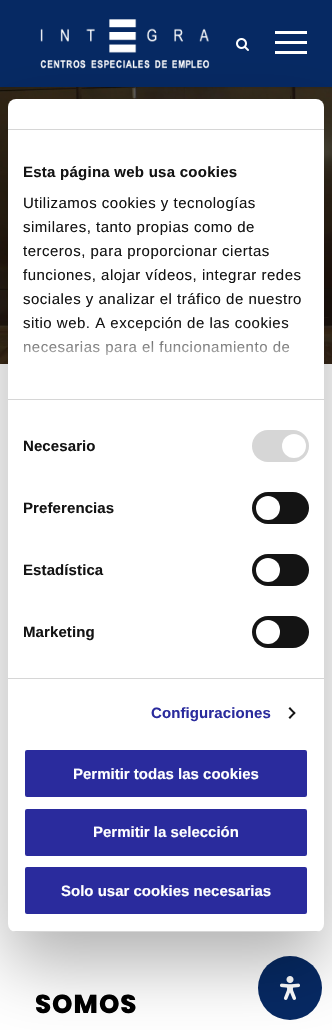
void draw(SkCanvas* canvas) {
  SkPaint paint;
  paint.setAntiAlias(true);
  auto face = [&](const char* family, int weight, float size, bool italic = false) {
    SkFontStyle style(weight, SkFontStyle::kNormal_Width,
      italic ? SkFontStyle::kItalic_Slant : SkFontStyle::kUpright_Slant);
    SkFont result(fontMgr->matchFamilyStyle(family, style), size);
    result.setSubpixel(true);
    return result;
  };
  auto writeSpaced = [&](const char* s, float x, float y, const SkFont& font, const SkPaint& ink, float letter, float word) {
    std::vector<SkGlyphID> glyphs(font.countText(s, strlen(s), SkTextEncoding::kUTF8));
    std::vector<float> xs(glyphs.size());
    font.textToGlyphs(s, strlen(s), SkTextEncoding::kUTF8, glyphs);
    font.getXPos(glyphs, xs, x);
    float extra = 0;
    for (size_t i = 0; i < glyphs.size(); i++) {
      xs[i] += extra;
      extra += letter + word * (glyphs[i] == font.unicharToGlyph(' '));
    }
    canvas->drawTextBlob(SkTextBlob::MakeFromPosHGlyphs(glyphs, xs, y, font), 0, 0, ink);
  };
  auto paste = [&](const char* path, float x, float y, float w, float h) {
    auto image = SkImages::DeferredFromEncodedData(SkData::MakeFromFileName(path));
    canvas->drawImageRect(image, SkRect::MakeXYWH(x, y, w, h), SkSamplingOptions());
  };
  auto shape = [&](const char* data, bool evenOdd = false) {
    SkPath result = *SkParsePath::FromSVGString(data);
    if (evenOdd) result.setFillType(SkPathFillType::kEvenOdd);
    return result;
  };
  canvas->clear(0xffffffff);
  paste("img/3.png", 0, 87, 332, 277);
  paint.setColor(0x1a000000);
  paint.setMaskFilter(SkMaskFilter::MakeBlur(kNormal_SkBlurStyle, 1));
  canvas->drawRect(SkRect::MakeXYWH(0, 1, 332, 87), paint);
  paint.setMaskFilter(nullptr);
  paint.setColor(0xff062963);
  canvas->drawRect(SkRect::MakeXYWH(0, 0, 332, 87), paint);
  paste("img/1.png", 40, 19, 170, 50);
  paste("img/2.png", 236, 38, 13, 13);
  {
    const struct { float x, y, w, h; SkColor color; } items[] = {
      {275, 31, 32, 3, 0xffffffff},
      {275, 41, 32, 3, 0xffffffff},
      {275, 51, 32, 3, 0xffffffff},
    };
    for (auto [x, y, w, h, color] : items) {
      paint.setColor(color);
      canvas->drawRect(SkRect::MakeXYWH(x, y, w, h), paint);
    }
  }
  paint.setColor(0xff062963);
  canvas->drawCircle(290, 988, 32, paint);
  paste("img/4.png", 280, 976, 20, 24);
  paint.setColor(0x4d000000);
  paint.setMaskFilter(SkMaskFilter::MakeBlur(kNormal_SkBlurStyle, 34));
  canvas->drawRoundRect(SkRect::MakeXYWH(8, 131, 316, 833), 8, 8, paint);
  paint.setMaskFilter(nullptr);
  paint.setColor(0xffffffff);
  canvas->drawRoundRect(SkRect::MakeXYWH(8, 99, 316, 833), 8, 8, paint);
  {
    const struct { float x, y, w, h; SkColor color; } items[] = {
      {8, 129, 316, 1, 0xffd6d6d6},
      {8, 399, 316, 1, 0xffd6d6d6},
      {8, 678, 316, 1, 0xffd6d6d6},
    };
    for (auto [x, y, w, h, color] : items) {
      paint.setColor(color);
      canvas->drawRect(SkRect::MakeXYWH(x, y, w, h), paint);
    }
  }
  canvas->drawRoundRect(SkRect::MakeXYWH(252, 430, 57, 32), 16, 16, paint);
  paint.setColor(0xffffffff);
  canvas->drawCircle(294, 446, 12, paint);
  paint.setColor(0xff141414);
  canvas->drawRoundRect(SkRect::MakeXYWH(252, 492, 57, 32), 16, 16, paint);
  paint.setColor(0xffffffff);
  canvas->drawCircle(268, 508, 12, paint);
  paint.setColor(0xff141414);
  canvas->drawRoundRect(SkRect::MakeXYWH(252, 554, 57, 32), 16, 16, paint);
  paint.setColor(0xffffffff);
  canvas->drawCircle(268, 570, 12, paint);
  paint.setColor(0xff141414);
  canvas->drawRoundRect(SkRect::MakeXYWH(252, 616, 57, 32), 16, 16, paint);
  paint.setColor(0xffffffff);
  canvas->drawCircle(268, 632, 12, paint);
  paint.setColor(0xff141414);
  canvas->drawPath(shape("M290 707L295.5 713L294.5 714.5L288.5 708.5Z"), paint);
  canvas->drawPath(shape("M294.5 711.5L295.5 713L290 719L288.5 717.5Z"), paint);
  canvas->save();
  canvas->clipPath(shape("M16 99H316C320.5 99 324 102.5 324 107V924C324 928.5 320.5 932 316 932H16C11.5 932 8 928.5 8 924V107C8 102.5 11.5 99 16 99Z"), true);
  paint.setColor(0xffd6d6d6);
  canvas->drawRect(SkRect::MakeXYWH(8, 931, 316, 1), paint);
  canvas->restore();
  paint.setColor(0xff2a2b9d);
  canvas->drawRoundRect(SkRect::MakeXYWH(24, 749, 284, 49), 3, 3, paint);
  paint.setStroke(true);
  paint.setStrokeWidth(2);
  paint.setColor(0xffffffff);
  canvas->drawRoundRect(SkRect::MakeXYWH(24, 749, 284, 49), 3, 3, paint);
  paint.setStroke(false);
  paint.setColor(0xff2a2b9d);
  canvas->drawRoundRect(SkRect::MakeXYWH(24, 808, 284, 49), 3, 3, paint);
  paint.setStroke(true);
  paint.setColor(0xffffffff);
  canvas->drawRoundRect(SkRect::MakeXYWH(24, 808, 284, 49), 3, 3, paint);
  paint.setStroke(false);
  paint.setColor(0xff2a2b9d);
  canvas->drawRoundRect(SkRect::MakeXYWH(24, 866, 284, 49), 3, 3, paint);
  paint.setStroke(true);
  paint.setColor(0xffffffff);
  canvas->drawRoundRect(SkRect::MakeXYWH(24, 866, 284, 49), 3, 3, paint);
  auto f0 = face("Liberation Sans", 700, 15);
  paint.setStroke(false);
  paint.setColor(0xff141414);
  writeSpaced("Esta página web usa cookies", 23, 177, f0, paint, 0.25f, 0);
  auto f1 = face("Liberation Sans", 400, 15);
  {
    const struct { const char* s; float x, y; } items[] = {
      {"Utilizamos cookies y tecnologías", 23, 208},
      {"similares, tanto propias como de", 23, 232},
      {"terceros, para proporcionar ciertas", 23, 256},
      {"funciones, alojar vídeos, integrar redes", 23, 280},
      {"sociales y analizar el tráfico de nuestro", 23, 304},
      {"sitio web. A excepción de las cookies", 23, 328},
      {"necesarias para el funcionamiento de", 23, 352},
    };
    for (auto [s, x, y] : items) {
      writeSpaced(s, x, y, f1, paint, 0.5f, 0);
    }
  }
  {
    const SkColor colors[] = {0xffffffff, 0xccffffff, 0x00ffffff};
    const float stops[] = {0, 0.5f, 1};
    const SkPoint ends[] = {{160, 399}, {160, 324}};
    paint.setShader(SkGradientShader::MakeLinear(ends, colors, stops, 3, SkTileMode::kClamp));
    paint.setAlpha(255);
  }
  canvas->drawRect(SkRect::MakeXYWH(23, 325, 267, 31), paint);
  paint.setShader(nullptr);
  paint.setColor(0xff141414);
  {
    const struct { const char* s; float x, y; } items[] = {
      {"Necesario", 23, 451},
      {"Preferencias", 23, 513},
      {"Estadística", 23, 575},
      {"Marketing", 23, 637},
    };
    for (auto [s, x, y] : items) {
      writeSpaced(s, x, y, f0, paint, 0.1f, 0);
    }
  }
  paint.setColor(0xff2a2b9d);
  writeSpaced("Configuraciones", 151, 718, f0, paint, 0.1f, 0);
  paint.setColor(0xffffffff);
  {
    const struct { const char* s; float x, y; } items[] = {
      {"Permitir todas las cookies", 73, 779},
      {"Permitir la selección", 93, 837},
      {"Solo usar cookies necesarias", 61, 896},
    };
    for (auto [s, x, y] : items) {
      canvas->drawString(s, x, y, f0, paint);
    }
  }
  auto f2 = face("Poppins", 800, 26);
  paint.setColor(0xff000000);
  writeSpaced("SOMOS", 35, 1013, f2, paint, 1, 0);
}
